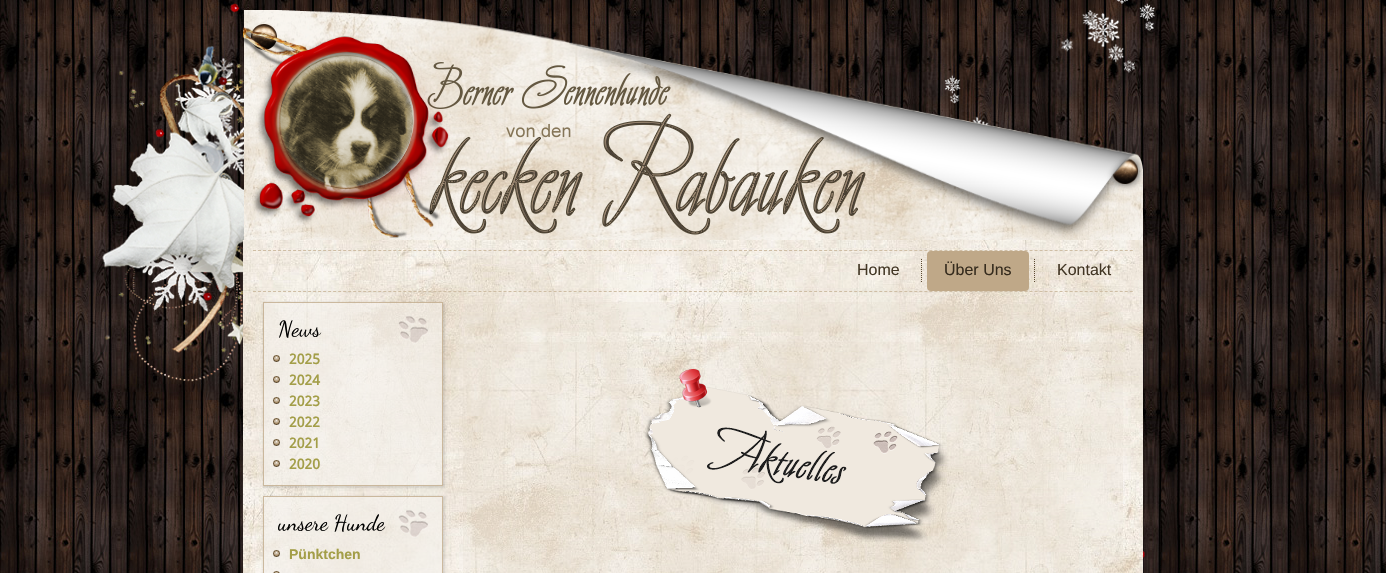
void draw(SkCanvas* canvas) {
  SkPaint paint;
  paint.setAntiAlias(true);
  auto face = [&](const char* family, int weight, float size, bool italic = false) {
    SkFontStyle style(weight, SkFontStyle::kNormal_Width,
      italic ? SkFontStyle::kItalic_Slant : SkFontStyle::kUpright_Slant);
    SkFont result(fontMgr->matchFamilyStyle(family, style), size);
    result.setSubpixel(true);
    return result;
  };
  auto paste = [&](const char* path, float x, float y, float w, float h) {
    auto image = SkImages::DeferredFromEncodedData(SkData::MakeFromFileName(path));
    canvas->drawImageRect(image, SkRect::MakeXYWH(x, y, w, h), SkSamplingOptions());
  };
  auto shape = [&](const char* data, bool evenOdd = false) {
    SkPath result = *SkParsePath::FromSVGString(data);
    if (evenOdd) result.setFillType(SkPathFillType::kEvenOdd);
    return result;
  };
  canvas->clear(0xffffffff);
  paste("img/1.png", 0, 0, 1386, 573);
  paste("img/2.png", 243, 10, 900, 230);
  paste("img/3.png", 243, 240, 900, 333);
  paint.setStroke(true);
  paint.setStrokeWidth(1);
  paint.setColor(0xffcfbea5);
  paint.setPathEffect(SkDashPathEffect::Make({{3, 2.01f}}, 0));
  canvas->drawPath(shape("M253 250.5H1133"), paint);
  paint.setPathEffect(nullptr);
  paint.setPathEffect(SkDashPathEffect::Make({{3, 2.01f}}, 0));
  canvas->drawPath(shape("M253 291.5H1133"), paint);
  paint.setPathEffect(nullptr);
  paste("img/4.png", 921, 259, 1, 23);
  paint.setStroke(false);
  paint.setColor(0xffbfa888);
  canvas->drawRoundRect(SkRect::MakeXYWH(927, 251, 102, 40), 4, 4, paint);
  paste("img/5.png", 1034, 259, 1, 23);
  canvas->save();
  canvas->clipPath(shape("M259 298H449V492H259ZM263 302H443V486H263Z", true), true);
  paint.setColor(0x1f000000);
  paint.setMaskFilter(SkMaskFilter::MakeBlur(kNormal_SkBlurStyle, 1));
  canvas->drawRect(SkRect::MakeXYWH(263, 302, 182, 186), paint);
  paint.setMaskFilter(nullptr);
  canvas->restore();
  paint.setColor(0x99f4f0eb);
  canvas->drawRect(SkRect::MakeXYWH(263, 302, 180, 184), paint);
  paint.setStroke(true);
  paint.setColor(0x99af926a);
  canvas->drawRect(SkRect::MakeXYWH(263.5f, 302.5f, 179, 183), paint);
  paste("img/6.png", 398, 316, 30, 28);
  paste("img/7.png", 273, 355, 7, 7);
  paste("img/8.png", 273, 376, 7, 7);
  paste("img/9.png", 273, 397, 7, 7);
  paste("img/10.png", 273, 418, 7, 7);
  paste("img/11.png", 273, 439, 7, 7);
  paste("img/12.png", 273, 460, 7, 7);
  canvas->save();
  canvas->clipPath(shape("M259 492H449V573H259ZM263 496H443V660H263Z", true), true);
  paint.setStroke(false);
  paint.setColor(0x1f000000);
  paint.setMaskFilter(SkMaskFilter::MakeBlur(kNormal_SkBlurStyle, 1));
  canvas->drawRect(SkRect::MakeXYWH(263, 496, 182, 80), paint);
  paint.setMaskFilter(nullptr);
  canvas->restore();
  paint.setColor(0x99f4f0eb);
  canvas->drawRect(SkRect::MakeXYWH(263, 496, 180, 77), paint);
  paint.setStroke(true);
  paint.setColor(0x99af926a);
  canvas->drawRect(SkRect::MakeXYWH(263.5f, 496.5f, 179, 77), paint);
  paste("img/13.png", 398, 510, 30, 28);
  paste("img/14.png", 273, 550, 7, 7);
  paste("img/15.png", 273, 571, 7, 2);
  paint.setStroke(false);
  paint.setColor(0x33e1d6c7);
  canvas->drawRoundRect(SkRect::MakeXYWH(463, 302, 660, 30), 10, 10, paint);
  canvas->drawRoundRect(SkRect::MakeXYWH(463, 342, 660, 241), 10, 10, paint);
  paste("img/16.png", 644, 369, 304, 173);
  auto f0 = face("Liberation Sans", 400, 16);
  paint.setColor(0xff423624);
  canvas->drawString("Home", 857, 275, f0, paint);
  paint.setColor(0xff352b1d);
  canvas->drawString("Über Uns", 944, 275, f0, paint);
  paint.setColor(0xff423624);
  canvas->drawString("Kontakt", 1057, 275, f0, paint);
  auto f1 = face("Dancing Script", 400, 22);
  paint.setColor(0xff000000);
  canvas->drawString("News", 278, 336, f1, paint);
  auto f2 = face("Khmer", 700, 14);
  paint.setColor(0xffa39e48);
  {
    const struct { const char* s; float x, y; } items[] = {
      {"2025", 289, 364},
      {"2024", 289, 385},
      {"2023", 289, 406},
      {"2022", 289, 427},
      {"2021", 289, 448},
      {"2020", 289, 469},
    };
    for (auto [s, x, y] : items) {
      canvas->drawString(s, x, y, f2, paint);
    }
  }
  paint.setColor(0xff000000);
  canvas->drawString("unsere Hunde", 278, 530, f1, paint);
  auto f3 = face("Liberation Sans", 700, 14);
  paint.setColor(0xffa39e48);
  canvas->drawString("Pünktchen", 289, 559, f3, paint);
}
